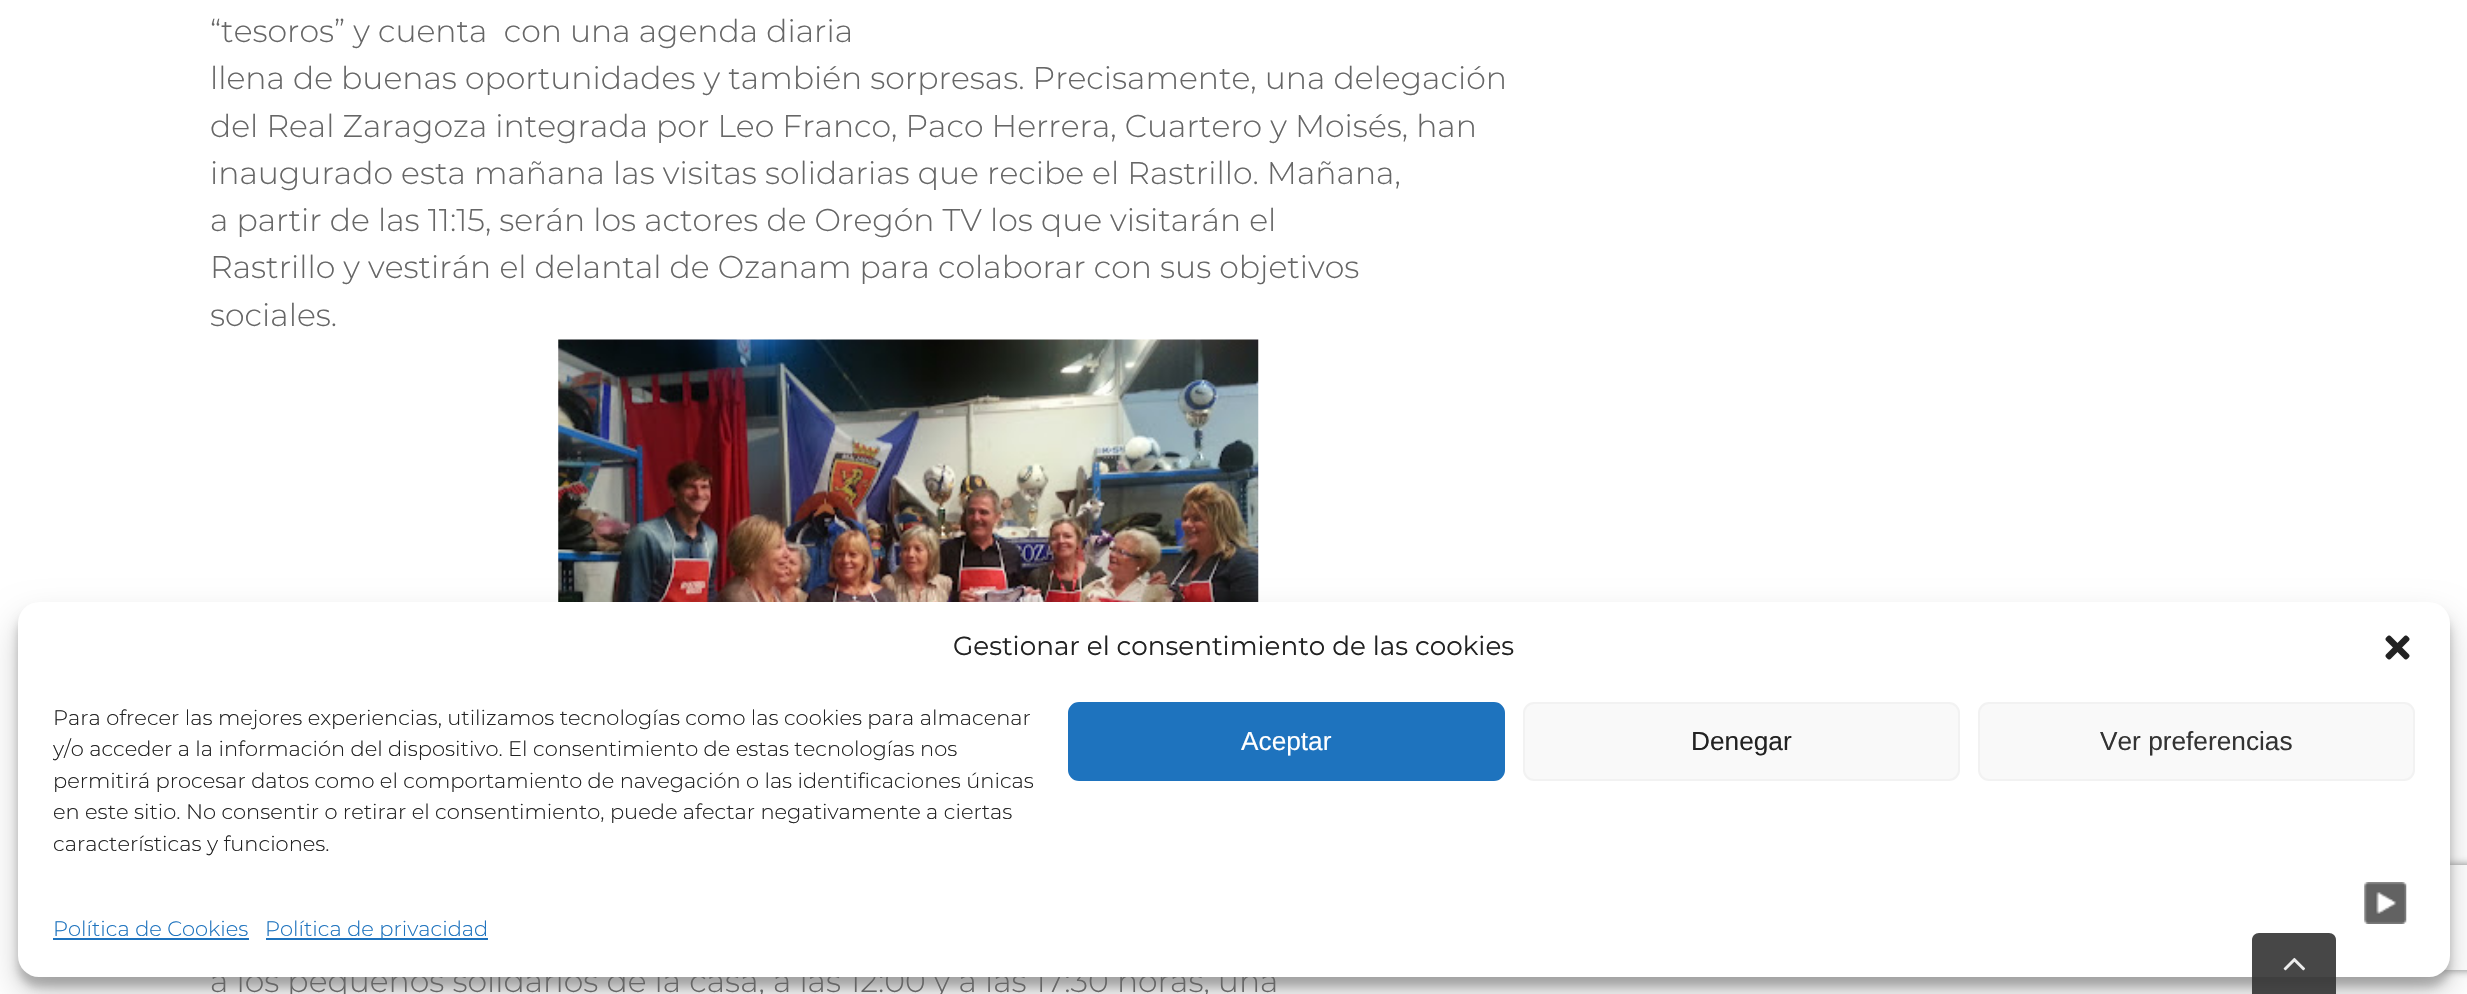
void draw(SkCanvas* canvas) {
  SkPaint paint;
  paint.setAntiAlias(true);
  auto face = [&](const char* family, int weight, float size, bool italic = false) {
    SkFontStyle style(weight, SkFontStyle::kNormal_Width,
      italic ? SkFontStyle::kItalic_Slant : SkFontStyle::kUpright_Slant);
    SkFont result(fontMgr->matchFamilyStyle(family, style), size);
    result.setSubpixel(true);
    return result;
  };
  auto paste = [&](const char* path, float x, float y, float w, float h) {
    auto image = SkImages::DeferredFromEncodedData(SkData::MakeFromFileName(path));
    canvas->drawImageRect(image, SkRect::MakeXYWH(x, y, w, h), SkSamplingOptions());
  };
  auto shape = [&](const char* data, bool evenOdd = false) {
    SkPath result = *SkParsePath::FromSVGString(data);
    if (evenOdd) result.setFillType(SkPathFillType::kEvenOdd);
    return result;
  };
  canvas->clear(0xffffffff);
  paste("img/1.png", 558, 339, 701, 263);
  paint.setColor(0x3b000000);
  paint.setMaskFilter(SkMaskFilter::MakeBlur(kNormal_SkBlurStyle, 5));
  canvas->drawRoundRect(SkRect::MakeXYWH(18, 613, 2432, 374), 21, 21, paint);
  paint.setMaskFilter(nullptr);
  paint.setColor(0x30000000);
  paint.setMaskFilter(SkMaskFilter::MakeBlur(kNormal_SkBlurStyle, 17.5f));
  canvas->drawRoundRect(SkRect::MakeXYWH(18, 620, 2432, 374), 21, 21, paint);
  paint.setMaskFilter(nullptr);
  canvas->save();
  canvas->clipPath(shape("M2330 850H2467V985H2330ZM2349 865H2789C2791 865 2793 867 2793 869V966C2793 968 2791 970 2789 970H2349C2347 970 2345 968 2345 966V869C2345 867 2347 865 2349 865Z", true), true);
  paint.setColor(0xff808080);
  paint.setMaskFilter(SkMaskFilter::MakeBlur(kNormal_SkBlurStyle, 4.5f));
  canvas->drawRoundRect(SkRect::MakeXYWH(2345, 865, 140, 105), 4, 4, paint);
  paint.setMaskFilter(nullptr);
  canvas->restore();
  auto f0 = face("Montserrat", 300, 31.5f);
  paint.setColor(0xff666666);
  {
    const struct { const char* s; float x, y; } items[] = {
      {"“tesoros” y cuenta  con una agenda diaria", 210, 42},
      {"llena de buenas oportunidades y también sorpresas. Precisamente, una delegación", 210, 89},
      {"del Real Zaragoza integrada por Leo Franco, Paco Herrera, Cuartero y Moisés, han", 210, 137},
      {"inaugurado esta mañana las visitas solidarias que recibe el Rastrillo. Mañana,", 210, 184},
      {"a partir de las 11:15, serán los actores de Oregón TV los que visitarán el", 210, 231},
      {"Rastrillo y vestirán el delantal de Ozanam para colaborar con sus objetivos", 210, 278},
      {"sociales.", 210, 326},
      {"a los pequeños solidarios de la casa, a las 12:00 y a las 17:30 horas, una", 210, 992},
    };
    for (auto [s, x, y] : items) {
      canvas->drawString(s, x, y, f0, paint);
    }
  }
  paint.setColor(0xffffffff);
  canvas->drawRoundRect(SkRect::MakeXYWH(18, 602, 2432, 375), 21, 21, paint);
  auto f1 = face("Montserrat", 400, 26.25f);
  paint.setColor(0xff222222);
  canvas->drawString("Gestionar el consentimiento de las cookies", 953, 655, f1, paint);
  paste("img/2.png", 2385, 635, 25, 25);
  auto f2 = face("Montserrat", 300, 21);
  canvas->drawString("Para ofrecer las mejores experiencias, utilizamos tecnologías como las cookies para almacenar", 53, 725, f2, paint);
  canvas->save();
  canvas->clipRect(SkRect::MakeXYWH(53, 702, 997, 166));
  canvas->drawString("y/o acceder a la información del dispositivo. El consentimiento de estas tecnologías nos", 53, 756, f2, paint);
  canvas->restore();
  {
    const struct { const char* s; float x, y; } items[] = {
      {"permitirá procesar datos como el comportamiento de navegación o las identificaciones únicas", 53, 788},
      {"en este sitio. No consentir o retirar el consentimiento, puede afectar negativamente a ciertas", 53, 819},
      {"características y funciones.", 53, 851},
    };
    for (auto [s, x, y] : items) {
      canvas->drawString(s, x, y, f2, paint);
    }
  }
  paint.setColor(0xff1e73be);
  canvas->drawRoundRect(SkRect::MakeXYWH(1069, 703, 435, 77), 10, 10, paint);
  paint.setStroke(true);
  paint.setStrokeWidth(2);
  canvas->drawRoundRect(SkRect::MakeXYWH(1069, 703, 435, 77), 10, 10, paint);
  auto f3 = face("Liberation Sans", 400, 26.25f);
  paint.setStroke(false);
  paint.setColor(0xffffffff);
  canvas->drawString("Aceptar", 1241, 750, f3, paint);
  paint.setColor(0xfff9f9f9);
  canvas->drawRoundRect(SkRect::MakeXYWH(1524, 703, 435, 77), 10, 10, paint);
  paint.setStroke(true);
  paint.setColor(0xfff2f2f2);
  canvas->drawRoundRect(SkRect::MakeXYWH(1524, 703, 435, 77), 10, 10, paint);
  paint.setStroke(false);
  paint.setColor(0xff222222);
  canvas->drawString("Denegar", 1691, 750, f3, paint);
  paint.setColor(0xfff9f9f9);
  canvas->drawRoundRect(SkRect::MakeXYWH(1979, 703, 435, 77), 10, 10, paint);
  paint.setStroke(true);
  paint.setColor(0xfff2f2f2);
  canvas->drawRoundRect(SkRect::MakeXYWH(1979, 703, 435, 77), 10, 10, paint);
  paint.setStroke(false);
  paint.setColor(0xff333333);
  canvas->drawString("Ver preferencias", 2100, 750, f3, paint);
  paint.setColor(0xff1e73be);
  canvas->drawString("Política de Cookies", 53, 936, f2, paint);
  canvas->drawRect(SkRect::MakeXYWH(53, 938, 196, 2), paint);
  canvas->drawRect(SkRect::MakeXYWH(266, 938, 222, 2), paint);
  canvas->drawString("Política de privacidad", 265, 936, f2, paint);
  paste("img/3.png", 2364, 882, 43, 42);
  paint.setColor(0xe6333333);
  canvas->drawPath(shape("M2259 933H2329C2333 933 2336 936 2336 940V994H2252V940C2252 936 2255 933 2259 933Z"), paint);
  paste("img/4.png", 2283, 957, 22, 14);
}
